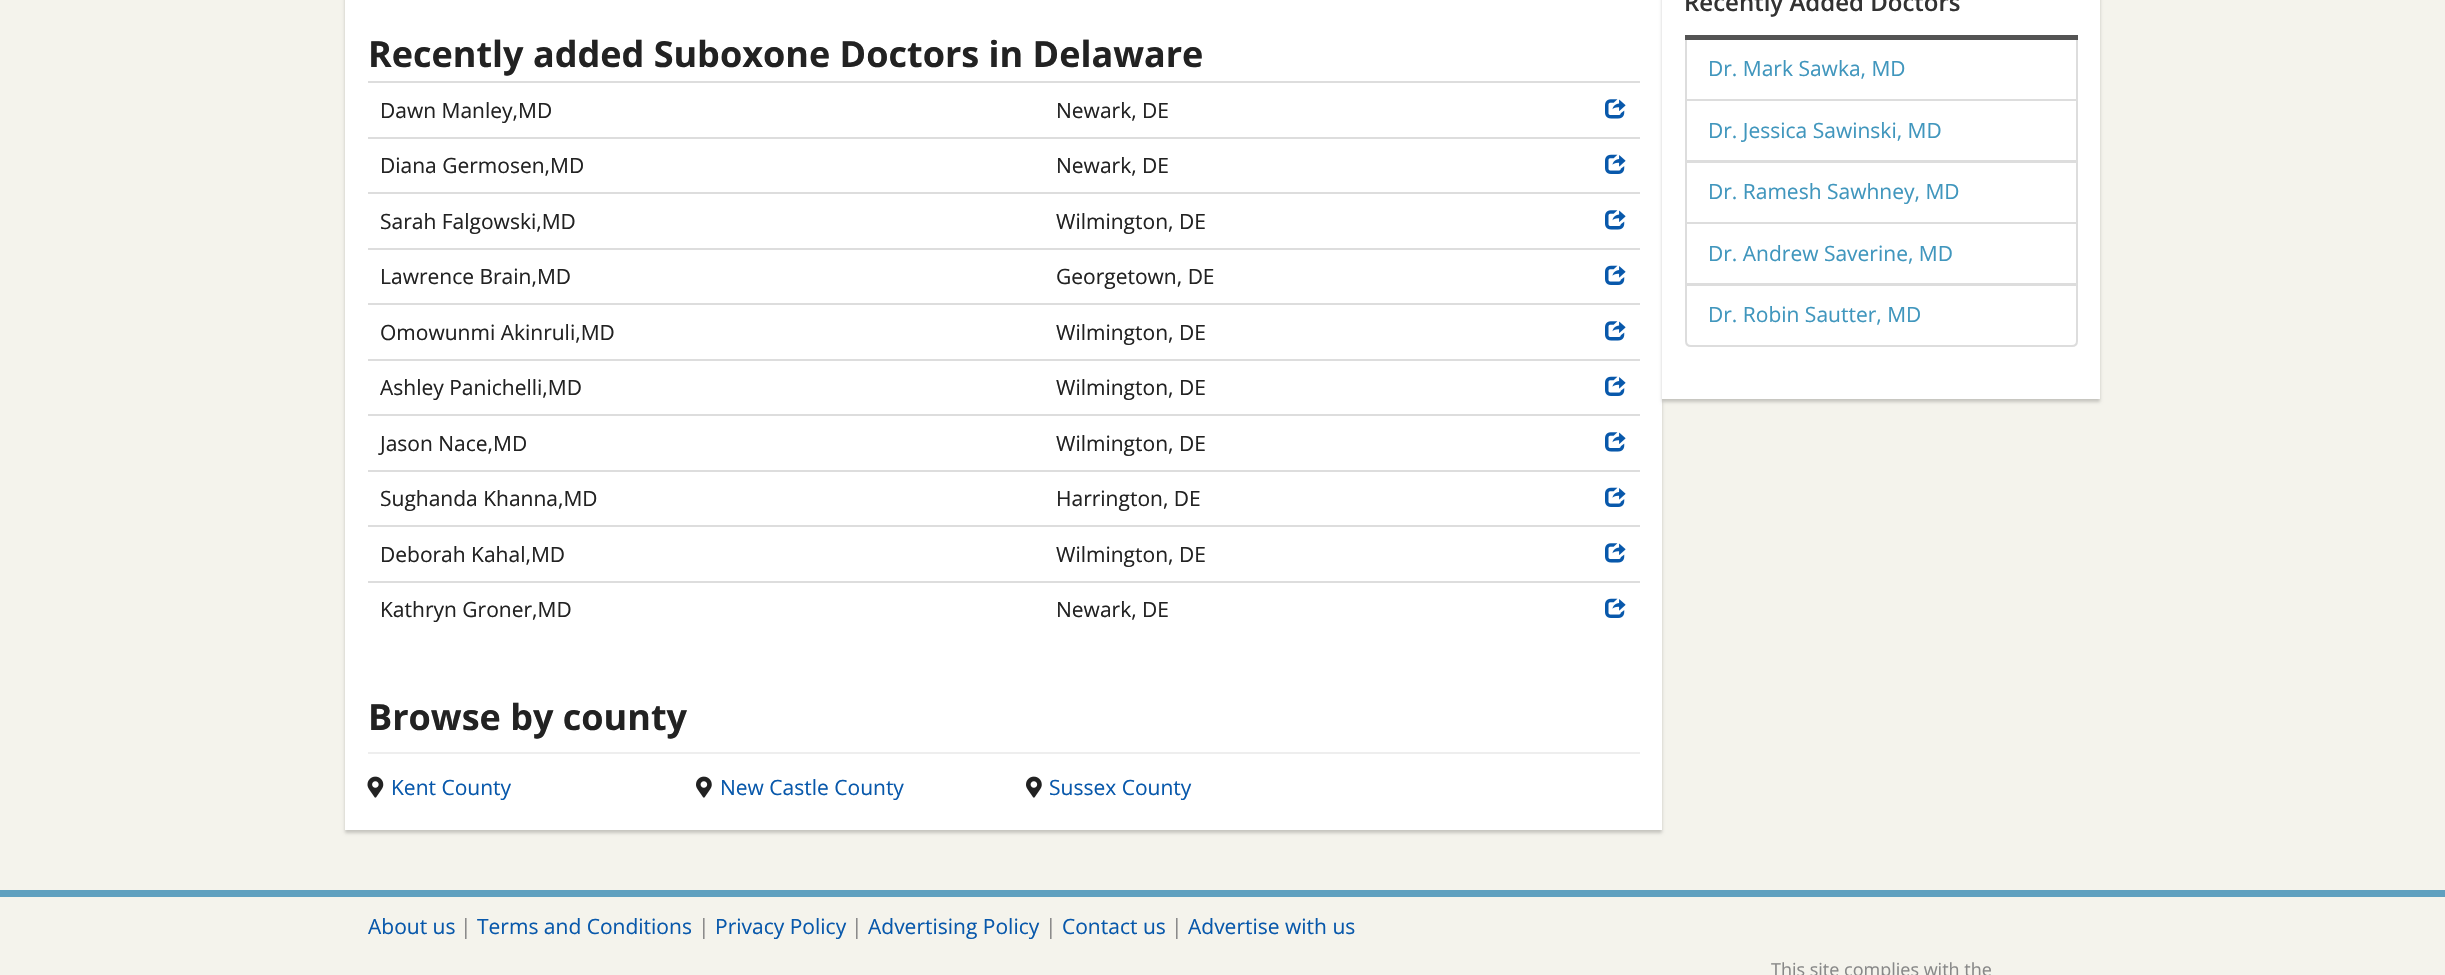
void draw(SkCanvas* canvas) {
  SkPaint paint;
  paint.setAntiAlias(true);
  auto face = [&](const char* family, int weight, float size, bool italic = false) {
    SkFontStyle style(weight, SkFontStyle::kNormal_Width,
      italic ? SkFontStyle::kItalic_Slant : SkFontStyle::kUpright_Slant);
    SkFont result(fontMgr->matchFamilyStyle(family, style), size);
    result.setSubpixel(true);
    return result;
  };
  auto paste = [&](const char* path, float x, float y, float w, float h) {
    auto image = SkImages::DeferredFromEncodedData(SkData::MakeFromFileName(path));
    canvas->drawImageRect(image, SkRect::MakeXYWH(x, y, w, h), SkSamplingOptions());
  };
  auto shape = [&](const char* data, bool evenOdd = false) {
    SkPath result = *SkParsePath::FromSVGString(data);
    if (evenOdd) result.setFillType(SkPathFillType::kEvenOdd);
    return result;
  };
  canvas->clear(0xfff4f3ec);
  paint.setColor(0x30000000);
  paint.setMaskFilter(SkMaskFilter::MakeBlur(kNormal_SkBlurStyle, 1.5f));
  canvas->drawRect(SkRect::MakeXYWH(345, -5, 1317, 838), paint);
  paint.setMaskFilter(nullptr);
  paint.setColor(0xffffffff);
  canvas->drawRect(SkRect::MakeXYWH(345, 0, 1317, 830), paint);
  paint.setColor(0xffdddddd);
  canvas->drawRect(SkRect::MakeXYWH(368, 81, 1272, 2), paint);
  paste("img/1.png", 1605, 99, 21, 20);
  canvas->drawRect(SkRect::MakeXYWH(368, 137, 1272, 2), paint);
  paste("img/2.png", 1605, 154, 21, 20);
  canvas->drawRect(SkRect::MakeXYWH(368, 192, 1272, 2), paint);
  paste("img/1.png", 1605, 210, 21, 20);
  canvas->drawRect(SkRect::MakeXYWH(368, 248, 1272, 2), paint);
  paste("img/2.png", 1605, 265, 21, 20);
  canvas->drawRect(SkRect::MakeXYWH(368, 303, 1272, 2), paint);
  paste("img/1.png", 1605, 321, 21, 20);
  canvas->drawRect(SkRect::MakeXYWH(368, 359, 1272, 2), paint);
  paste("img/2.png", 1605, 376, 21, 20);
  canvas->drawRect(SkRect::MakeXYWH(368, 414, 1272, 2), paint);
  paste("img/1.png", 1605, 432, 21, 20);
  canvas->drawRect(SkRect::MakeXYWH(368, 470, 1272, 2), paint);
  paste("img/2.png", 1605, 487, 21, 20);
  canvas->drawRect(SkRect::MakeXYWH(368, 525, 1272, 2), paint);
  paste("img/1.png", 1605, 543, 21, 20);
  canvas->drawRect(SkRect::MakeXYWH(368, 581, 1272, 2), paint);
  paste("img/2.png", 1605, 598, 21, 20);
  paint.setColor(0xffeeeeee);
  canvas->drawRect(SkRect::MakeXYWH(368, 752, 1272, 2), paint);
  paste("img/3.png", 367, 776, 17, 22);
  paste("img/4.png", 696, 776, 16, 22);
  paste("img/4.png", 1026, 776, 16, 22);
  paint.setColor(0x30000000);
  paint.setMaskFilter(SkMaskFilter::MakeBlur(kNormal_SkBlurStyle, 1.5f));
  canvas->drawRect(SkRect::MakeXYWH(1662, -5, 438, 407), paint);
  paint.setMaskFilter(nullptr);
  paint.setColor(0xffffffff);
  canvas->drawRect(SkRect::MakeXYWH(1662, 0, 438, 399), paint);
  paint.setStroke(true);
  paint.setStrokeWidth(2);
  paint.setColor(0xffdddddd);
  canvas->drawRect(SkRect::MakeXYWH(1686, 39, 391, 61), paint);
  paint.setStroke(false);
  paint.setColor(0xff545454);
  canvas->drawRect(SkRect::MakeXYWH(1685, 35, 393, 5), paint);
  paint.setStroke(true);
  paint.setColor(0xffdddddd);
  canvas->drawRect(SkRect::MakeXYWH(1686, 100, 391, 61), paint);
  canvas->drawRect(SkRect::MakeXYWH(1686, 162, 391, 61), paint);
  canvas->drawRect(SkRect::MakeXYWH(1686, 223, 391, 61), paint);
  paint.setStroke(false);
  paint.setColor(0xffffffff);
  canvas->drawPath(shape("M1686 285H2077V341C2077 344 2075 346 2072 346H1691C1688 346 1686 344 1686 341Z"), paint);
  paint.setStroke(true);
  paint.setColor(0xffdddddd);
  canvas->drawPath(shape("M1686 285H2077V341C2077 344 2075 346 2072 346H1691C1688 346 1686 344 1686 341Z"), paint);
  paint.setStroke(false);
  paint.setColor(0xff5fa0bf);
  canvas->drawRect(SkRect::MakeXYWH(0, 890, 2445, 7), paint);
  auto f0 = face("Open Sans", 700, 36);
  paint.setColor(0xff222222);
  canvas->drawString("Recently added Suboxone Doctors in Delaware", 368, 67, f0, paint);
  auto f1 = face("Open Sans", 400, 21);
  {
    const struct { const char* s; float x, y; } items[] = {
      {"Dawn Manley,MD", 380, 118},
      {"Newark, DE", 1056, 118},
      {"Diana Germosen,MD", 380, 173},
      {"Newark, DE", 1056, 173},
      {"Sarah Falgowski,MD", 380, 229},
      {"Wilmington, DE", 1056, 229},
      {"Lawrence Brain,MD", 380, 284},
      {"Georgetown, DE", 1056, 284},
      {"Omowunmi Akinruli,MD", 380, 340},
      {"Wilmington, DE", 1056, 340},
      {"Ashley Panichelli,MD", 380, 395},
      {"Wilmington, DE", 1056, 395},
      {"Jason Nace,MD", 380, 451},
      {"Wilmington, DE", 1056, 451},
      {"Sughanda Khanna,MD", 380, 506},
      {"Harrington, DE", 1056, 506},
      {"Deborah Kahal,MD", 380, 562},
      {"Wilmington, DE", 1056, 562},
      {"Kathryn Groner,MD", 380, 617},
      {"Newark, DE", 1056, 617},
    };
    for (auto [s, x, y] : items) {
      canvas->drawString(s, x, y, f1, paint);
    }
  }
  canvas->drawString("Browse by county", 368, 730, f0, paint);
  paint.setColor(0xff0858ab);
  {
    const struct { const char* s; float x, y; } items[] = {
      {"Kent County", 391, 795},
      {"New Castle County", 720, 795},
      {"Sussex County", 1049, 795},
    };
    for (auto [s, x, y] : items) {
      canvas->drawString(s, x, y, f1, paint);
    }
  }
  auto f2 = face("Open Sans", 600, 24);
  paint.setColor(0xff333333);
  canvas->drawString("Recently Added Doctors", 1684, 11, f2, paint);
  paint.setColor(0xff4096bd);
  {
    const struct { const char* s; float x, y; } items[] = {
      {"Dr. Mark Sawka, MD", 1708, 76},
      {"Dr. Jessica Sawinski, MD", 1708, 138},
      {"Dr. Ramesh Sawhney, MD", 1708, 199},
      {"Dr. Andrew Saverine, MD", 1708, 261},
      {"Dr. Robin Sautter, MD", 1708, 322},
    };
    for (auto [s, x, y] : items) {
      canvas->drawString(s, x, y, f1, paint);
    }
  }
  paint.setColor(0xff0858ab);
  canvas->drawString("About us", 368, 934, f1, paint);
  paint.setColor(0xff888888);
  canvas->drawString("|", 460, 934, f1, paint);
  paint.setColor(0xff0858ab);
  canvas->drawString("Terms and Conditions", 477, 934, f1, paint);
  paint.setColor(0xff888888);
  canvas->drawString("|", 698, 934, f1, paint);
  paint.setColor(0xff0858ab);
  canvas->drawString("Privacy Policy", 715, 934, f1, paint);
  paint.setColor(0xff888888);
  canvas->drawString("|", 851, 934, f1, paint);
  paint.setColor(0xff0858ab);
  canvas->drawString("Advertising Policy", 868, 934, f1, paint);
  paint.setColor(0xff888888);
  canvas->drawString("|", 1045, 934, f1, paint);
  paint.setColor(0xff0858ab);
  canvas->drawString("Contact us", 1062, 934, f1, paint);
  paint.setColor(0xff888888);
  canvas->drawString("|", 1171, 934, f1, paint);
  paint.setColor(0xff0858ab);
  canvas->drawString("Advertise with us", 1188, 934, f1, paint);
  auto f3 = face("Open Sans", 400, 18);
  paint.setColor(0xff888888);
  canvas->drawString("This site complies with the", 1771, 976, f3, paint);
}
